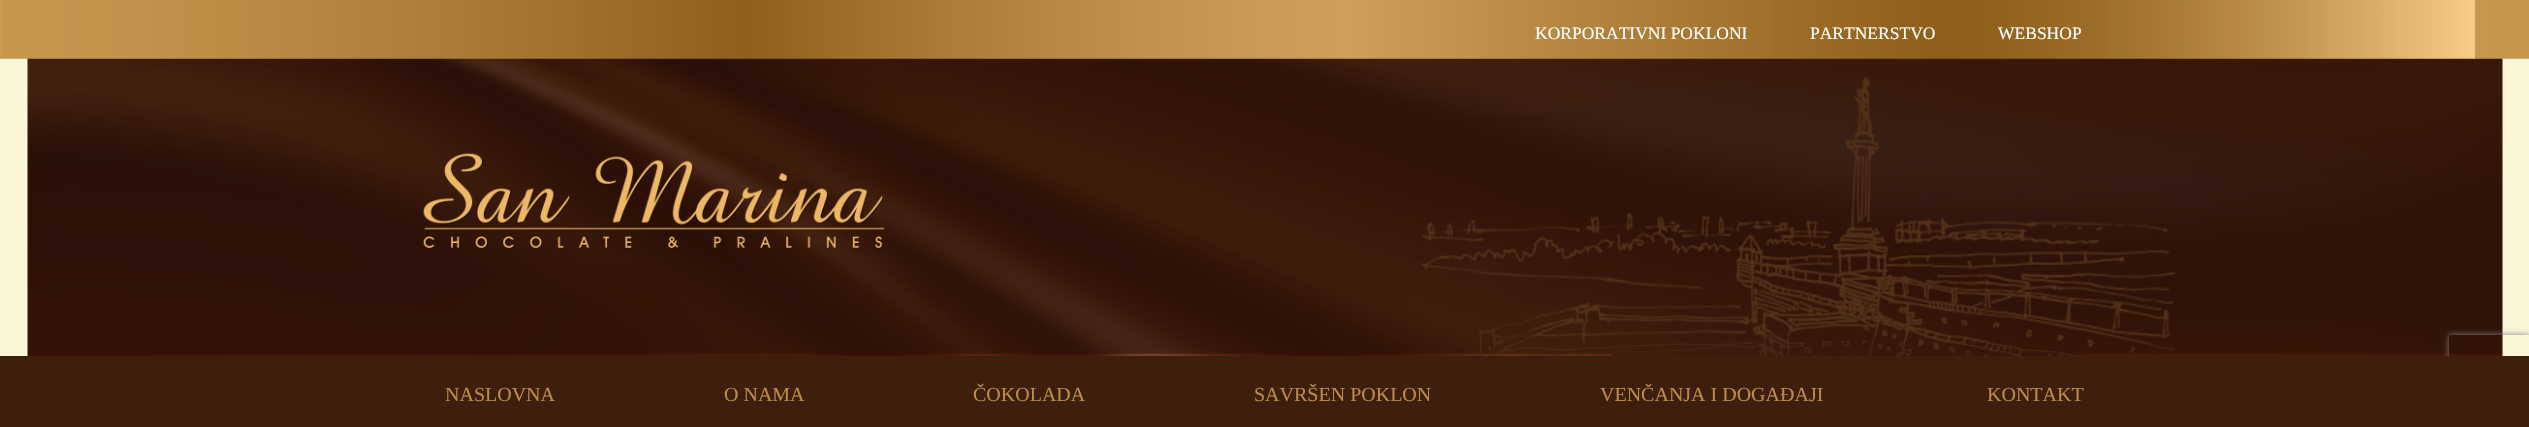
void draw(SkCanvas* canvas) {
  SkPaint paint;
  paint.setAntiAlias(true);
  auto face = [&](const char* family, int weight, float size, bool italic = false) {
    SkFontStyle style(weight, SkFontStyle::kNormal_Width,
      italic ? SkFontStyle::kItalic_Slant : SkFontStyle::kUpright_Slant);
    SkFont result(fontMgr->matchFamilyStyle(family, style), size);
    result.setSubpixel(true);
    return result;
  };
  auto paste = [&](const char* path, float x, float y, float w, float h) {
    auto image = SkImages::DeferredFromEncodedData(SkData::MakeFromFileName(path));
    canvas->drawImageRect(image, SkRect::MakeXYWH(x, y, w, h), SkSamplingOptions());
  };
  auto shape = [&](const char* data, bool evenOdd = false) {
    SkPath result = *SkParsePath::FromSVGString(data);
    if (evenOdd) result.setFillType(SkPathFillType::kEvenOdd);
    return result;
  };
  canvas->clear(0xfffcf6d8);
  paste("img/2.png", 27, 58, 2476, 298);
  paste("img/1.png", 0, 0, 2529, 59);
  paste("img/3.png", 423, 153, 462, 96);
  canvas->save();
  canvas->clipPath(shape("M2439 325H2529V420H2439ZM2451.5 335H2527.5C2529 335 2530 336 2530 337.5V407.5C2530 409 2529 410 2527.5 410H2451.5C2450 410 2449 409 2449 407.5V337.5C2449 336 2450 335 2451.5 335Z", true), true);
  paint.setColor(0xff808080);
  paint.setMaskFilter(SkMaskFilter::MakeBlur(kNormal_SkBlurStyle, 3));
  canvas->drawRoundRect(SkRect::MakeXYWH(2449, 335, 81, 75), 2.5f, 2.5f, paint);
  paint.setMaskFilter(nullptr);
  canvas->restore();
  paint.setColor(0xff3e1f0e);
  canvas->drawRect(SkRect::MakeXYWH(0, 356, 2529, 71), paint);
  auto f0 = face("Liberation Serif", 400, 17.5f);
  paint.setColor(0xffffffff);
  {
    const struct { const char* s; float x, y; } items[] = {
      {"KORPORATIVNI POKLONI", 1535, 39},
      {"PARTNERSTVO", 1810, 39},
      {"WEBSHOP", 1998, 39},
    };
    for (auto [s, x, y] : items) {
      canvas->drawString(s, x, y, f0, paint);
    }
  }
  auto f1 = face("Liberation Serif", 400, 20);
  paint.setColor(0xffbb8c48);
  {
    const struct { const char* s; float x, y; } items[] = {
      {"NASLOVNA", 445, 401},
      {"O NAMA", 724, 401},
      {"ČOKOLADA", 973, 401},
      {"SAVRŠEN POKLON", 1254, 401},
      {"VENČANJA I DOGAĐAJI", 1600, 401},
      {"KONTAKT", 1987, 401},
    };
    for (auto [s, x, y] : items) {
      canvas->drawString(s, x, y, f1, paint);
    }
  }
}
